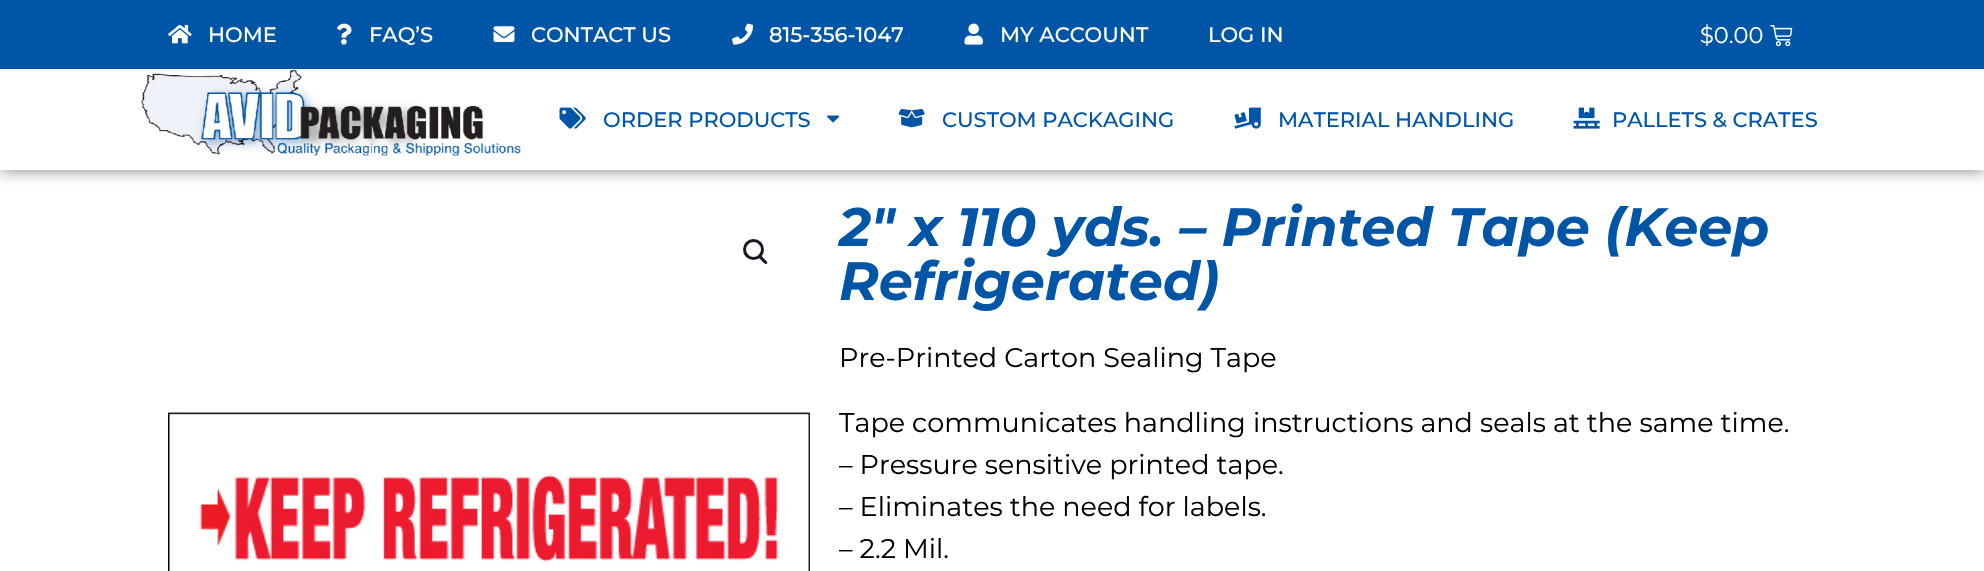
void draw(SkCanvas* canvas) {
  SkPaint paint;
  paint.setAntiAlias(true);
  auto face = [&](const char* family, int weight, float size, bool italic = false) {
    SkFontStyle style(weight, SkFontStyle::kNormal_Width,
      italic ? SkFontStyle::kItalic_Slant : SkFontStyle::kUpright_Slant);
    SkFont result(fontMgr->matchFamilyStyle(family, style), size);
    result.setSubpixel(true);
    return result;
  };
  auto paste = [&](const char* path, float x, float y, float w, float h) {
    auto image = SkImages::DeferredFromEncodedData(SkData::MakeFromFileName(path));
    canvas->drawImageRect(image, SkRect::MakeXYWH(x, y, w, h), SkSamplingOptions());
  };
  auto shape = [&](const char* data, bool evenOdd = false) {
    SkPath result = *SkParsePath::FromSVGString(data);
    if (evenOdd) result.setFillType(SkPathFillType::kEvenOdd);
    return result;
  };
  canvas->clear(0xffffffff);
  canvas->save();
  canvas->clipPath(shape("M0 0H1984V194H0ZM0 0H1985V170H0Z", true), true);
  paint.setColor(0x80000000);
  paint.setMaskFilter(SkMaskFilter::MakeBlur(kNormal_SkBlurStyle, 7.5f));
  canvas->drawRect(SkRect::MakeXYWH(0, 0, 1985, 170), paint);
  paint.setMaskFilter(nullptr);
  canvas->restore();
  paint.setColor(0xff0055a6);
  canvas->drawRect(SkRect::MakeXYWH(0, 0, 1984, 69), paint);
  paste("img/1.png", 168, 24, 24, 20);
  paste("img/2.png", 337, 23, 15, 22);
  paste("img/3.png", 493, 26, 22, 16);
  paste("img/4.png", 732, 23, 21, 22);
  paste("img/5.png", 964, 23, 19, 22);
  paste("img/6.png", 1770, 25, 23, 22);
  paint.setColor(0xe6ffffff);
  canvas->drawRect(SkRect::MakeXYWH(0, 169, 1984, 1), paint);
  paste("img/7.png", 141, 69, 380, 90);
  paste("img/8.png", 559, 107, 27, 22);
  paste("img/9.png", 827, 115, 13, 8);
  paste("img/10.png", 898, 108, 27, 20);
  paste("img/11.png", 1234, 107, 27, 22);
  paste("img/12.png", 1573, 107, 27, 22);
  paint.setStroke(true);
  paint.setStrokeWidth(3);
  paint.setColor(0xff161922);
  canvas->drawCircle(753.5f, 249.5f, 9, paint);
  paint.setStroke(false);
  canvas->drawPath(shape("M758.5 255C760 253.5 763 257.5 764 258.5C764.5 259.5 768.5 262 767 263.5C765.5 265.5 762.5 261.5 761.5 260.5C761 259.5 757 257 758.5 255Z"), paint);
  paste("img/13.png", 168, 412, 642, 159);
  auto f0 = face("Montserrat", 500, 21);
  paint.setColor(0xffffffff);
  {
    const struct { const char* s; float x, y; } items[] = {
      {"HOME", 208, 42},
      {"FAQ’S", 369, 42},
      {"CONTACT US", 531, 42},
      {"815-356-1047", 769, 42},
      {"MY ACCOUNT", 1000, 42},
      {"LOG IN", 1208, 42},
    };
    for (auto [s, x, y] : items) {
      canvas->drawString(s, x, y, f0, paint);
    }
  }
  auto f1 = face("Montserrat", 400, 22.5f);
  canvas->drawString("$0.00", 1700, 43, f1, paint);
  paint.setColor(0xff0055a6);
  {
    const struct { const char* s; float x, y; } items[] = {
      {"ORDER PRODUCTS", 603, 127},
      {"CUSTOM PACKAGING", 942, 127},
      {"MATERIAL HANDLING", 1278, 127},
      {"PALLETS & CRATES", 1612, 127},
    };
    for (auto [s, x, y] : items) {
      canvas->drawString(s, x, y, f0, paint);
    }
  }
  auto f2 = face("Montserrat", 700, 54, true);
  canvas->drawString("2″ x 110 yds. – Printed Tape (Keep", 839, 246, f2, paint);
  canvas->drawString("Refrigerated)", 839, 300, f2, paint);
  auto f3 = face("Montserrat", 400, 27);
  paint.setColor(0xff000000);
  {
    const struct { const char* s; float x, y; } items[] = {
      {"Pre-Printed Carton Sealing Tape", 839, 367},
      {"Tape communicates handling instructions and seals at the same time.", 839, 432},
      {"– Pressure sensitive printed tape.", 839, 474},
      {"– Eliminates the need for labels.", 839, 516},
      {"– 2.2 Mil.", 839, 558},
    };
    for (auto [s, x, y] : items) {
      canvas->drawString(s, x, y, f3, paint);
    }
  }
}
